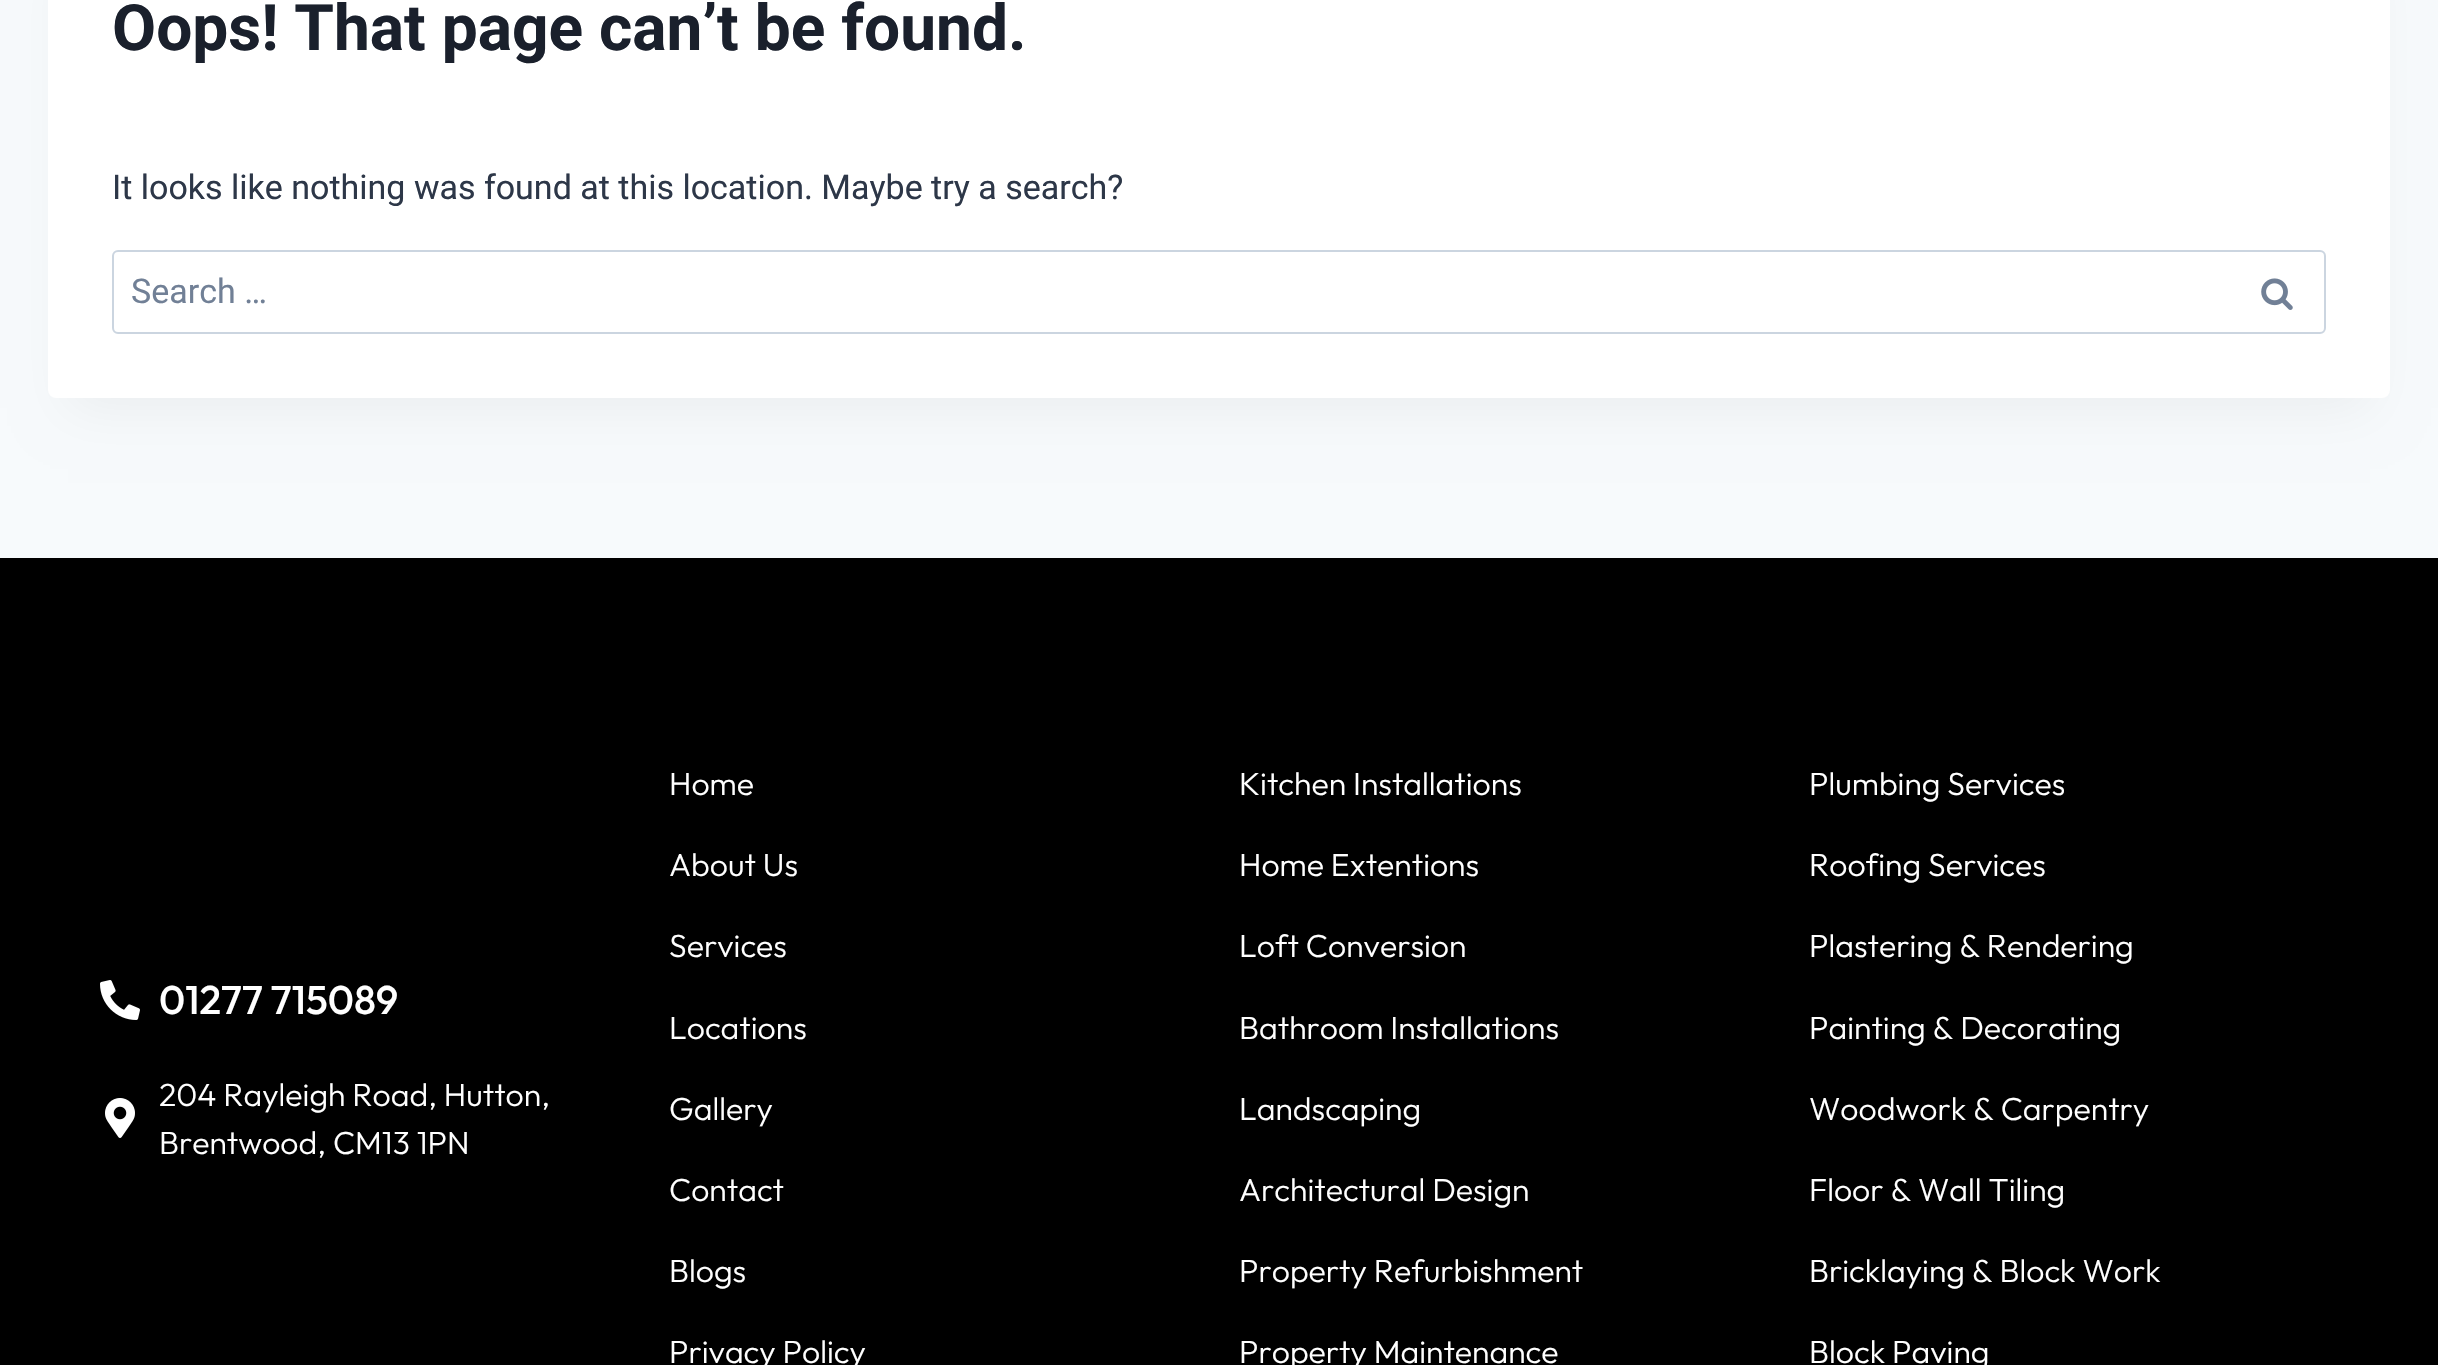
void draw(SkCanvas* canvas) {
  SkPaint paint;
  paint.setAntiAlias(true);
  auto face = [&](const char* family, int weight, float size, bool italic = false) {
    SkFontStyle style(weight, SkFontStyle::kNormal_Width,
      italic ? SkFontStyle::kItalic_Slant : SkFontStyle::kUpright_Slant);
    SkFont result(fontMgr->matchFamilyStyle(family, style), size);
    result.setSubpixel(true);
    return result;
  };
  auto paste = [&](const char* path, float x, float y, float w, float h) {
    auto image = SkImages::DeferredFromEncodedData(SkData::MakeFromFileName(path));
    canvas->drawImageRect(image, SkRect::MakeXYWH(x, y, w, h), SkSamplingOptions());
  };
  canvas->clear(0xfff7fafc);
  paint.setColor(0x0d000000);
  paint.setMaskFilter(SkMaskFilter::MakeBlur(kNormal_SkBlurStyle, 25));
  canvas->drawRect(SkRect::MakeXYWH(68, -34, 2302, 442), paint);
  paint.setMaskFilter(nullptr);
  paint.setColor(0xffffffff);
  canvas->drawRoundRect(SkRect::MakeXYWH(48, -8, 2342, 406), 8, 8, paint);
  paint.setStroke(true);
  paint.setStrokeWidth(2);
  paint.setColor(0xffcbd5e0);
  canvas->drawRoundRect(SkRect::MakeXYWH(113, 251, 2212, 82), 5, 5, paint);
  paste("img/1.png", 2261, 278, 32, 32);
  paint.setStroke(false);
  paint.setColor(0xff000000);
  canvas->drawRect(SkRect::MakeXYWH(0, 558, 2438, 807), paint);
  paste("img/2.png", 100, 980, 40, 40);
  paste("img/3.png", 105, 1098, 30, 40);
  auto f0 = face("Roboto", 700, 64);
  paint.setColor(0xff1a202c);
  canvas->drawString("Oops! That page can’t be found.", 112, 50, f0, paint);
  auto f1 = face("Roboto", 400, 34);
  paint.setColor(0xff2d3748);
  canvas->drawString("It looks like nothing was found at this location. Maybe try a search?", 112, 199, f1, paint);
  paint.setColor(0xff718096);
  canvas->drawString("Search …", 131, 303, f1, paint);
  auto f2 = face("Outfit", 500, 40);
  paint.setColor(0xffffffff);
  canvas->drawString("01277 715089", 159, 1014, f2, paint);
  auto f3 = face("Outfit", 300, 32);
  {
    const struct { const char* s; float x, y; } items[] = {
      {"204 Rayleigh Road, Hutton,", 159, 1106},
      {"Brentwood, CM13 1PN", 159, 1154},
      {"Home", 669, 795},
      {"About Us", 669, 876},
      {"Services", 669, 957},
      {"Locations", 669, 1039},
      {"Gallery", 669, 1120},
      {"Contact", 669, 1201},
      {"Blogs", 669, 1282},
      {"Privacy Policy", 669, 1363},
      {"Kitchen Installations", 1239, 795},
      {"Home Extentions", 1239, 876},
      {"Loft Conversion", 1239, 957},
      {"Bathroom Installations", 1239, 1039},
      {"Landscaping", 1239, 1120},
      {"Architectural Design", 1239, 1201},
      {"Property Refurbishment", 1239, 1282},
      {"Property Maintenance", 1239, 1363},
      {"Plumbing Services", 1809, 795},
      {"Roofing Services", 1809, 876},
      {"Plastering & Rendering", 1809, 957},
      {"Painting & Decorating", 1809, 1039},
      {"Woodwork & Carpentry", 1809, 1120},
      {"Floor & Wall Tiling", 1809, 1201},
      {"Bricklaying & Block Work", 1809, 1282},
      {"Block Paving", 1809, 1363},
    };
    for (auto [s, x, y] : items) {
      canvas->drawString(s, x, y, f3, paint);
    }
  }
}
